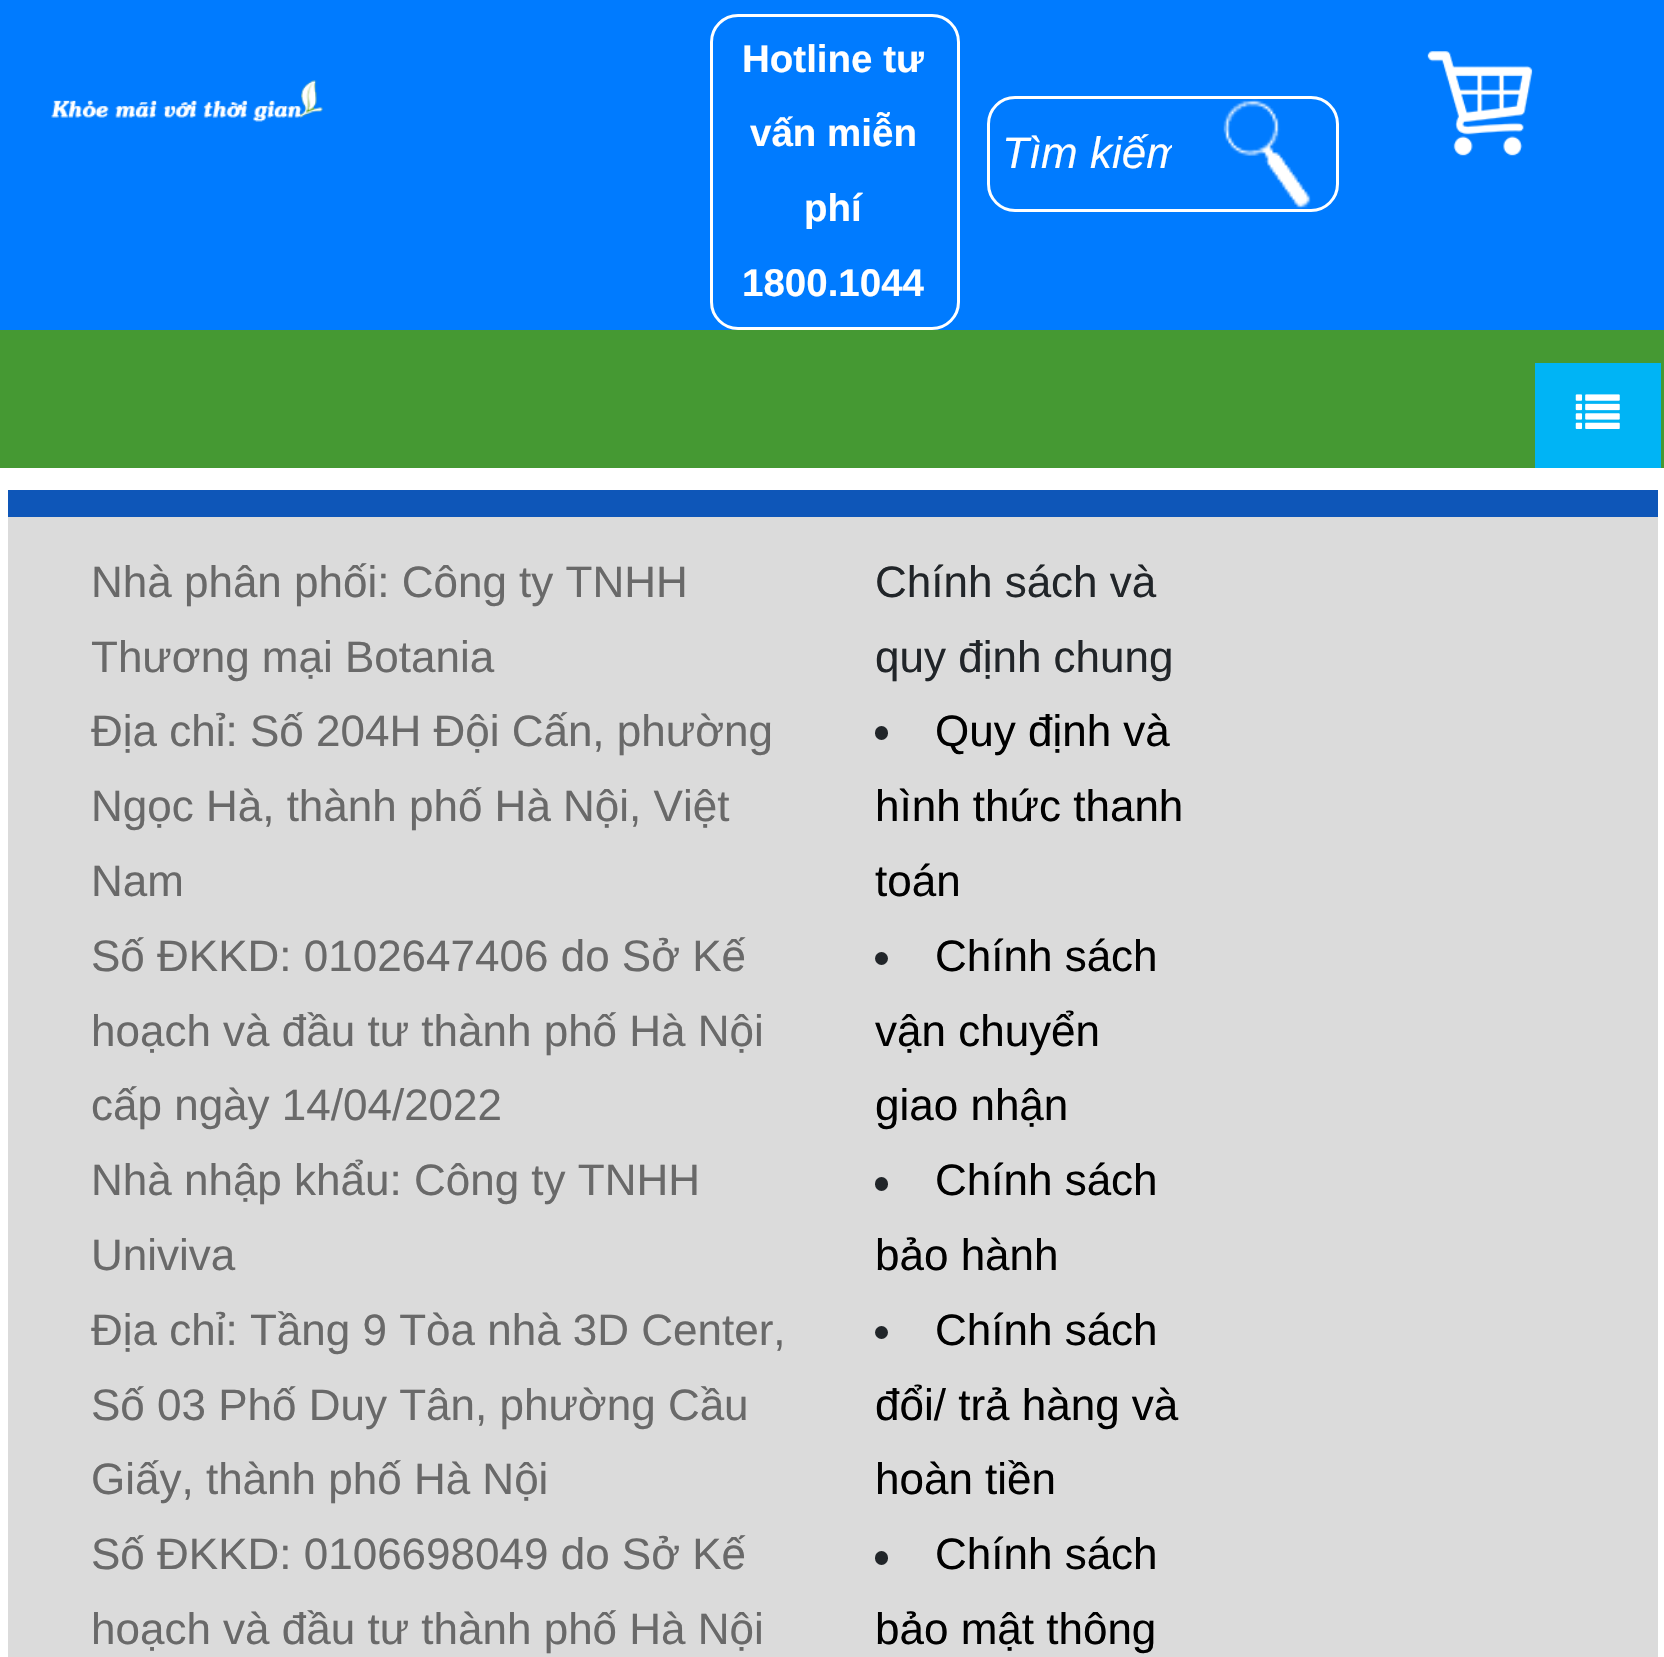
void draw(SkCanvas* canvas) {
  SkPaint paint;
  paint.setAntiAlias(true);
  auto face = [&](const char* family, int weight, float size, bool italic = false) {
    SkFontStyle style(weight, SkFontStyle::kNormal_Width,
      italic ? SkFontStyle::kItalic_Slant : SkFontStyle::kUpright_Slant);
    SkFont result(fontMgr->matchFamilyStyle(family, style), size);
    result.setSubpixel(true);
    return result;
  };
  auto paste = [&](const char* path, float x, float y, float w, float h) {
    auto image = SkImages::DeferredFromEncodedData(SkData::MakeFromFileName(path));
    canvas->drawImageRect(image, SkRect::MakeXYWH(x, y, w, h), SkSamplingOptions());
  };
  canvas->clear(0xffffffff);
  paint.setColor(0xff007bff);
  canvas->drawRect(SkRect::MakeXYWH(0, 0, 1664, 330), paint);
  paste("img/1.png", 51, 80, 272, 42);
  paint.setStroke(true);
  paint.setStrokeWidth(3);
  paint.setColor(0xffffffff);
  canvas->drawRoundRect(SkRect::MakeXYWH(711.5f, 15.5f, 247, 313), 26.5f, 26.5f, paint);
  canvas->drawRoundRect(SkRect::MakeXYWH(988.5f, 97.5f, 349, 113), 26.5f, 26.5f, paint);
  paste("img/2.png", 1223, 99, 88, 110);
  paste("img/3.png", 1427, 51, 106, 105);
  paint.setStroke(false);
  paint.setColor(0xff459933);
  canvas->drawRect(SkRect::MakeXYWH(0, 330, 1664, 138), paint);
  paint.setColor(0xff00b4f5);
  canvas->drawRect(SkRect::MakeXYWH(1535, 363, 126, 105), paint);
  paste("img/4.png", 1575, 394, 45, 35);
  paint.setColor(0xffdbdbdb);
  canvas->drawRect(SkRect::MakeXYWH(8, 517, 1650, 1140), paint);
  paint.setColor(0xff0e56b8);
  canvas->drawRect(SkRect::MakeXYWH(8, 490, 1650, 27), paint);
  paint.setColor(0xff212529);
  canvas->drawRoundRect(SkRect::MakeXYWH(875, 726, 13, 14), 6.5f, 6.5f, paint);
  canvas->drawCircle(881.5f, 958.5f, 6.5f, paint);
  canvas->drawRoundRect(SkRect::MakeXYWH(875, 1177, 13, 14), 6.5f, 6.5f, paint);
  canvas->drawCircle(881.5f, 1332.5f, 6.5f, paint);
  canvas->drawRoundRect(SkRect::MakeXYWH(875, 1551, 13, 14), 6.5f, 6.5f, paint);
  auto f0 = face("Liberation Sans", 700, 38.5f);
  paint.setColor(0xffffffff);
  {
    const struct { const char* s; float x, y; } items[] = {
      {"Hotline tư", 742, 72},
      {"vấn miễn", 750, 146},
      {"phí", 804, 221},
      {"1800.1044", 742, 296},
    };
    for (auto [s, x, y] : items) {
      canvas->drawString(s, x, y, f0, paint);
    }
  }
  canvas->save();
  canvas->clipRect(SkRect::MakeXYWH(1004, 129, 168, 50));
  auto f1 = face("Liberation Sans", 400, 44, true);
  canvas->drawString("Tìm kiếm", 1002, 168, f1, paint);
  canvas->restore();
  auto f2 = face("Liberation Sans", 400, 44);
  paint.setColor(0xff696969);
  {
    const struct { const char* s; float x, y; } items[] = {
      {"Nhà phân phối: Công ty TNHH", 91, 597},
      {"Thương mại Botania", 91, 672},
      {"Địa chỉ: Số 204H Đội Cấn, phường", 91, 746},
      {"Ngọc Hà, thành phố Hà Nội, Việt", 91, 821},
      {"Nam", 91, 896},
      {"Số ĐKKD: 0102647406 do Sở Kế", 91, 971},
      {"hoạch và đầu tư thành phố Hà Nội", 91, 1046},
      {"cấp ngày 14/04/2022", 91, 1120},
      {"Nhà nhập khẩu: Công ty TNHH", 91, 1195},
      {"Univiva", 91, 1270},
      {"Địa chỉ: Tầng 9 Tòa nhà 3D Center,", 91, 1345},
      {"Số 03 Phố Duy Tân, phường Cầu", 91, 1420},
      {"Giấy, thành phố Hà Nội", 91, 1494},
      {"Số ĐKKD: 0106698049 do Sở Kế", 91, 1569},
      {"hoạch và đầu tư thành phố Hà Nội", 91, 1644},
    };
    for (auto [s, x, y] : items) {
      canvas->drawString(s, x, y, f2, paint);
    }
  }
  paint.setColor(0xff212529);
  canvas->drawString("Chính sách và", 875, 597, f2, paint);
  canvas->drawString("quy định chung", 875, 672, f2, paint);
  paint.setColor(0xff000000);
  {
    const struct { const char* s; float x, y; } items[] = {
      {"Quy định và", 935, 746},
      {"hình thức thanh", 875, 821},
      {"toán", 875, 896},
      {"Chính sách", 935, 971},
      {"vận chuyển", 875, 1046},
      {"giao nhận", 875, 1120},
      {"Chính sách", 935, 1195},
      {"bảo hành", 875, 1270},
      {"Chính sách", 935, 1345},
      {"đổi/ trả hàng và", 875, 1420},
      {"hoàn tiền", 875, 1494},
      {"Chính sách", 935, 1569},
      {"bảo mật thông", 875, 1644},
    };
    for (auto [s, x, y] : items) {
      canvas->drawString(s, x, y, f2, paint);
    }
  }
}
